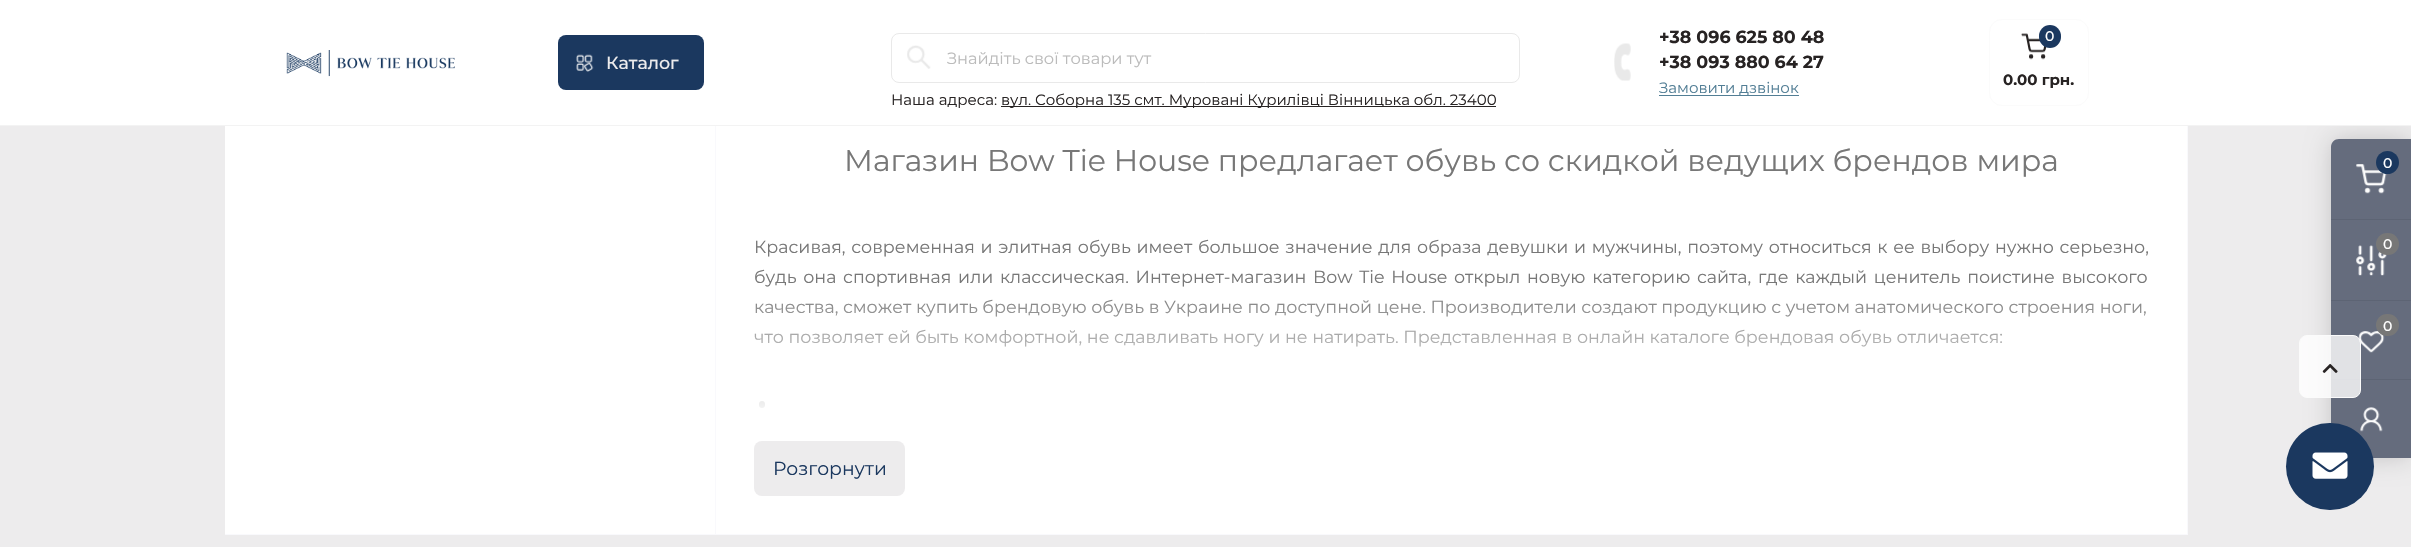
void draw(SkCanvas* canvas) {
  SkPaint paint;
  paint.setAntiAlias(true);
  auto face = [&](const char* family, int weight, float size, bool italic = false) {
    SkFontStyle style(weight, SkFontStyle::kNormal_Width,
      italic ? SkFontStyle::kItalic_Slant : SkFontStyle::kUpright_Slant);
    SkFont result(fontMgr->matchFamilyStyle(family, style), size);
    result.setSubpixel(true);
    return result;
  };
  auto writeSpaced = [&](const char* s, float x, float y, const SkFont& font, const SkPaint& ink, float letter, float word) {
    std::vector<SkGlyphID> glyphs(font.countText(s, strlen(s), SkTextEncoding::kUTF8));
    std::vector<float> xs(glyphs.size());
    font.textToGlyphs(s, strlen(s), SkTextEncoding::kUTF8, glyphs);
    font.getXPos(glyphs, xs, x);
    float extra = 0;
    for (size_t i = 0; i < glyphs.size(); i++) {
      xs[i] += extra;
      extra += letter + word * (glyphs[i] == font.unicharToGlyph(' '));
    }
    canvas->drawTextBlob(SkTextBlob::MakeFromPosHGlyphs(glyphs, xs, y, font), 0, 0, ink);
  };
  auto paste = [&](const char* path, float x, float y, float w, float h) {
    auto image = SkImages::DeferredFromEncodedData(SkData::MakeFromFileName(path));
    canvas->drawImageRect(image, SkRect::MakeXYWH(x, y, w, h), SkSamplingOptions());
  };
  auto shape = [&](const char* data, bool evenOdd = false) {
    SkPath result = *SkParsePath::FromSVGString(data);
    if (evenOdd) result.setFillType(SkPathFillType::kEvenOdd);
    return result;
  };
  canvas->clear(0xffedeced);
  paint.setColor(0xffffffff);
  canvas->drawRect(SkRect::MakeXYWH(716, 126, 1471, 408), paint);
  paint.setStroke(true);
  paint.setStrokeWidth(1);
  paint.setColor(0xfff9f9fc);
  canvas->drawRect(SkRect::MakeXYWH(715.5f, -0.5f, 1472, 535), paint);
  paint.setStroke(false);
  paint.setColor(0x2b000000);
  paint.setMaskFilter(SkMaskFilter::MakeBlur(kNormal_SkBlurStyle, 12.5f));
  canvas->drawRoundRect(SkRect::MakeXYWH(2331, 139, 80, 319), 8, 8, paint);
  paint.setMaskFilter(nullptr);
  paint.setColor(0xffffffff);
  canvas->drawRect(SkRect::MakeXYWH(0, 0, 2411, 125), paint);
  paint.setColor(0xfff3f3f3);
  canvas->drawRect(SkRect::MakeXYWH(0, 125, 2411, 1), paint);
  paste("img/1.png", 286, 50, 169, 27);
  paint.setColor(0xff1b385f);
  canvas->drawRoundRect(SkRect::MakeXYWH(558, 35, 146, 55), 8, 8, paint);
  paste("img/2.png", 576, 54, 18, 18);
  paint.setStroke(true);
  paint.setColor(0xffe9e9e9);
  canvas->drawRoundRect(SkRect::MakeXYWH(891.5f, 33.5f, 628, 49), 7.5f, 7.5f, paint);
  paste("img/3.png", 907, 45, 24, 24);
  paint.setStroke(false);
  paint.setColor(0xff272323);
  canvas->drawRect(SkRect::MakeXYWH(1001, 106, 495, 1), paint);
  paste("img/4.png", 1614, 43, 17, 38);
  paint.setColor(0xff527e95);
  canvas->drawRect(SkRect::MakeXYWH(1659, 95, 140, 1), paint);
  paint.setStroke(true);
  paint.setColor(0xfffbfbfb);
  canvas->drawRoundRect(SkRect::MakeXYWH(1989.5f, 19.5f, 99, 86), 12.5f, 12.5f, paint);
  paste("img/5.png", 2021, 33, 26, 27);
  paint.setStroke(false);
  paint.setColor(0xff1b385f);
  canvas->drawRoundRect(SkRect::MakeXYWH(2039, 25, 22, 23), 11, 11, paint);
  paint.setColor(0xffffffff);
  canvas->drawRect(SkRect::MakeXYWH(225, 126, 490, 408), paint);
  paint.setColor(0xfff9f9fc);
  canvas->drawRect(SkRect::MakeXYWH(225, 534, 490, 1), paint);
  paint.setColor(0xff777777);
  canvas->drawRoundRect(SkRect::MakeXYWH(759, 401, 6, 7), 3, 3, paint);
  paint.setColor(0xffedeced);
  canvas->drawRoundRect(SkRect::MakeXYWH(754, 441, 151, 55), 8, 8, paint);
  paint.setColor(0xff656c7d);
  canvas->drawPath(shape("M2339 139H2411V458H2339C2334.5 458 2331 454.5 2331 450V147C2331 142.5 2334.5 139 2339 139Z"), paint);
  paste("img/6.png", 2356, 164, 31, 30);
  paint.setColor(0xff1b385f);
  canvas->drawCircle(2387.5f, 162.5f, 11.5f, paint);
  paint.setColor(0xff5d6474);
  canvas->drawRect(SkRect::MakeXYWH(2331, 219, 80, 1), paint);
  paste("img/7.png", 2356, 245, 31, 31);
  paint.setColor(0xff777777);
  canvas->drawRoundRect(SkRect::MakeXYWH(2376, 233, 23, 22), 11, 11, paint);
  paint.setColor(0xff5d6474);
  canvas->drawRect(SkRect::MakeXYWH(2331, 300, 80, 1), paint);
  paste("img/8.png", 2358, 331, 27, 22);
  paint.setColor(0xff777777);
  canvas->drawRoundRect(SkRect::MakeXYWH(2376, 314, 23, 22), 11, 11, paint);
  paint.setColor(0xff5d6474);
  canvas->drawRect(SkRect::MakeXYWH(2331, 379, 80, 1), paint);
  paste("img/9.png", 2360, 407, 23, 25);
  paint.setColor(0xccffffff);
  canvas->drawRoundRect(SkRect::MakeXYWH(2299.5f, 335.5f, 61, 62), 7.5f, 7.5f, paint);
  paint.setStroke(true);
  paint.setColor(0xfffbfbfb);
  canvas->drawRoundRect(SkRect::MakeXYWH(2299.5f, 335.5f, 61, 62), 7.5f, 7.5f, paint);
  paste("img/10.png", 2322, 363, 16, 10);
  paint.setStroke(false);
  paint.setColor(0xff1b385f);
  canvas->drawRoundRect(SkRect::MakeXYWH(2286, 423, 88, 87), 43.5f, 43.5f, paint);
  paste("img/11.png", 2312, 452, 36, 27);
  auto f0 = face("Montserrat", 500, 17.5f);
  paint.setColor(0xffedeced);
  canvas->drawString("Каталог", 606, 69, f0, paint);
  auto f1 = face("Montserrat", 400, 16.25f);
  paint.setColor(0xffbbbbbb);
  canvas->drawString("Знайдіть свої товари тут", 947, 64, f1, paint);
  auto f2 = face("Montserrat", 400, 15);
  paint.setColor(0xff272323);
  canvas->drawString("Наша адреса:", 891, 105, f2, paint);
  canvas->drawString("вул. Соборна 135 смт. Муровані Курилівці Вінницька обл. 23400", 1001, 105, f2, paint);
  auto f3 = face("Montserrat", 700, 17.5f);
  canvas->drawString("+38 096 625 80 48", 1659, 43, f3, paint);
  canvas->drawString("+38 093 880 64 27", 1659, 68, f3, paint);
  paint.setColor(0xff527e95);
  canvas->drawString("Замовити дзвінок", 1659, 93, f2, paint);
  auto f4 = face("Montserrat", 500, 14);
  paint.setColor(0xffffffff);
  canvas->drawString("0", 2045, 41, f4, paint);
  auto f5 = face("Montserrat", 700, 15);
  paint.setColor(0xff272323);
  canvas->drawString("0.00 грн.", 2003, 85, f5, paint);
  auto f6 = face("Montserrat", 400, 30);
  paint.setColor(0xff777777);
  canvas->drawString("Магазин Bow Tie House предлагает обувь со скидкой ведущих брендов мира", 844, 171, f6, paint);
  auto f7 = face("Montserrat", 400, 17.5f);
  writeSpaced("Красивая, современная и элитная обувь имеет большое значение для образа девушки и мужчины, поэтому относиться к ее выбору нужно серьезно,", 754, 253, f7, paint, 0, 1.1f);
  writeSpaced("будь она спортивная или классическая. Интернет-магазин Bow Tie House открыл новую категорию сайта, где каждый ценитель поистине высокого", 754, 283, f7, paint, 0, 2.1f);
  canvas->drawString("качества, сможет купить брендовую обувь в Украине по доступной цене. Производители создают продукцию с учетом анатомического строения ноги,", 754, 313, f7, paint);
  canvas->drawString("что позволяет ей быть комфортной, не сдавливать ногу и не натирать. Представленная в онлайн каталоге брендовая обувь отличается:", 754, 343, f7, paint);
  {
    const SkColor colors[] = {0x00ffffff, 0xffffffff};
    const float stops[] = {0, 1};
    const SkPoint ends[] = {{1451, 284}, {1451, 421}};
    paint.setShader(SkGradientShader::MakeLinear(ends, colors, stops, 2, SkTileMode::kClamp));
    paint.setAlpha(255);
  }
  canvas->drawRect(SkRect::MakeXYWH(754, 300, 1394, 108), paint);
  auto f8 = face("Montserrat", 400, 18.75f);
  paint.setShader(nullptr);
  paint.setColor(0xff1b385f);
  canvas->drawString("Розгорнути", 773, 475, f8, paint);
  paint.setColor(0xffffffff);
  {
    const struct { const char* s; float x, y; } items[] = {
      {"0", 2383, 168},
      {"0", 2383, 249},
      {"0", 2383, 331},
    };
    for (auto [s, x, y] : items) {
      canvas->drawString(s, x, y, f4, paint);
    }
  }
}
